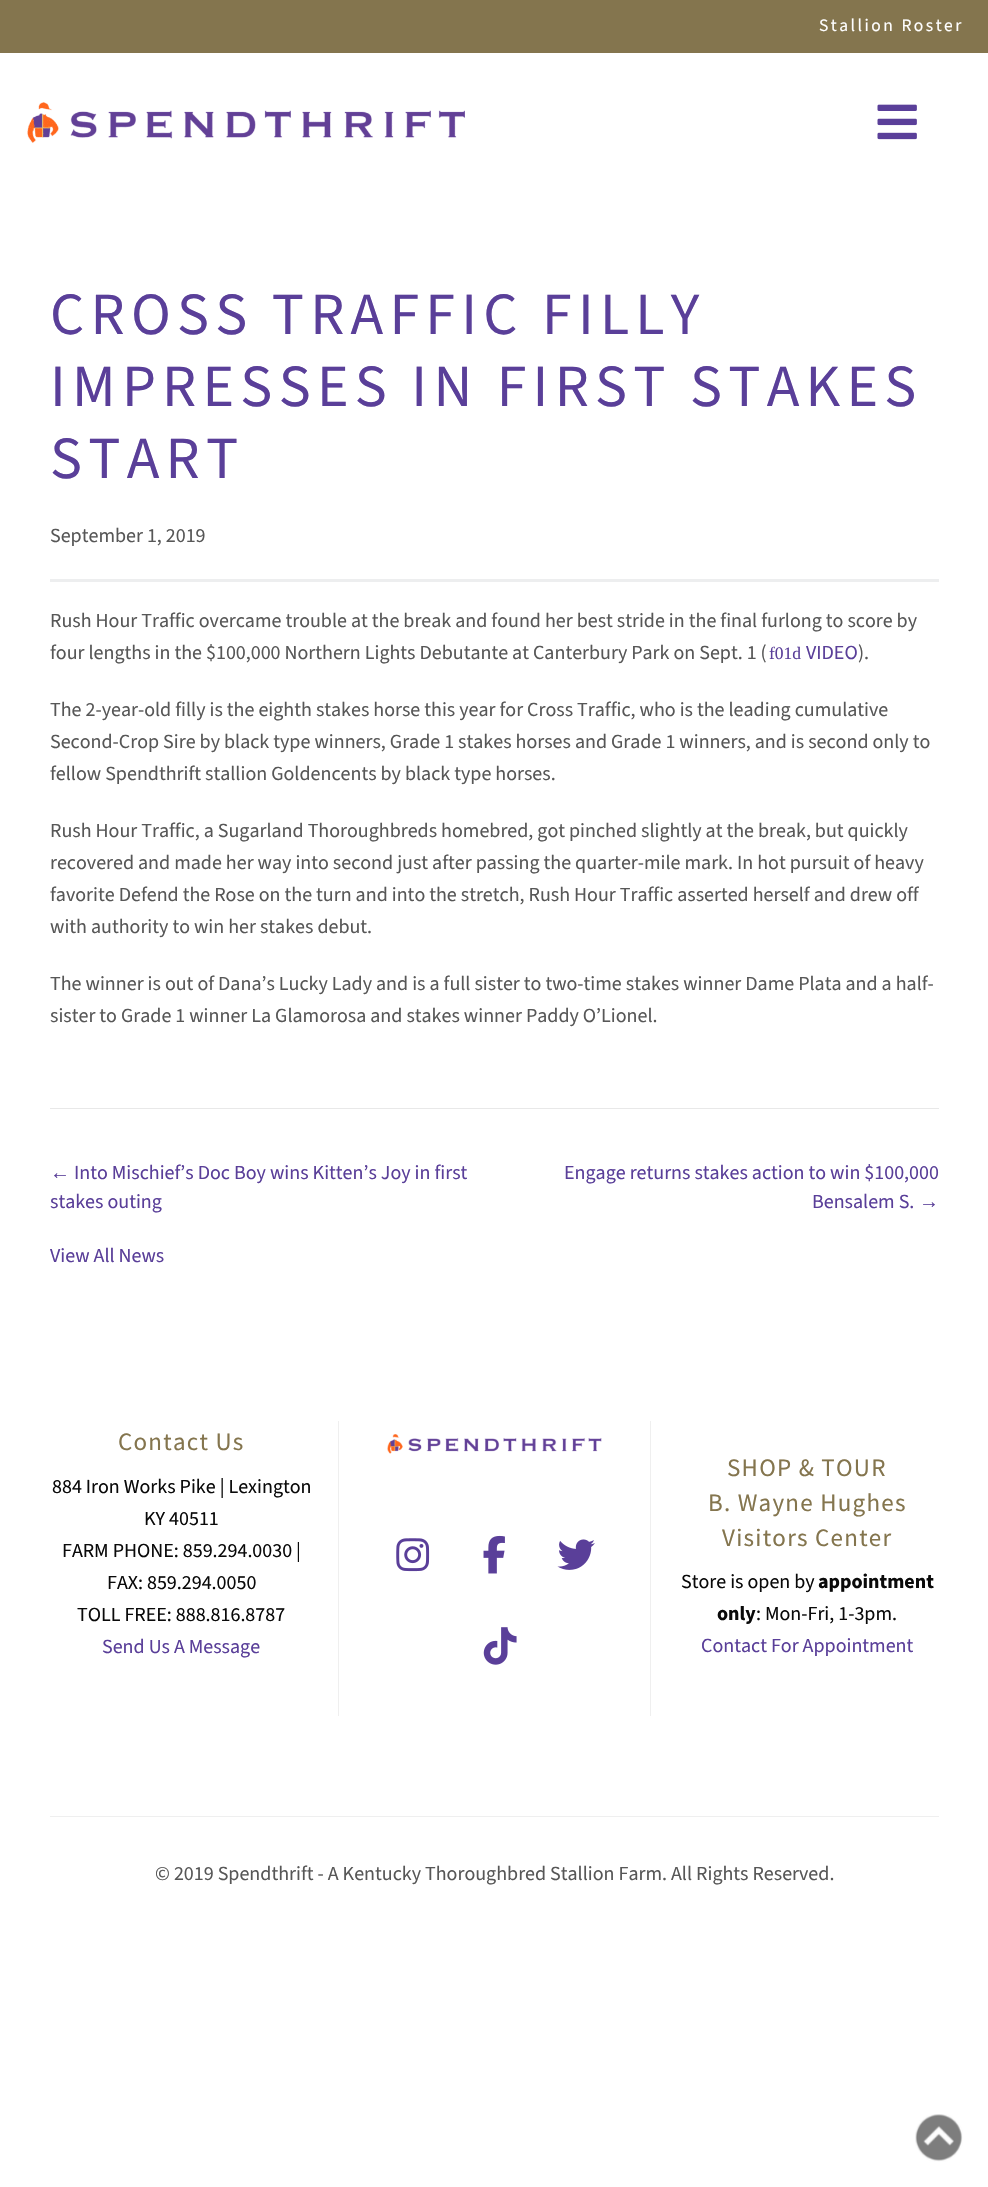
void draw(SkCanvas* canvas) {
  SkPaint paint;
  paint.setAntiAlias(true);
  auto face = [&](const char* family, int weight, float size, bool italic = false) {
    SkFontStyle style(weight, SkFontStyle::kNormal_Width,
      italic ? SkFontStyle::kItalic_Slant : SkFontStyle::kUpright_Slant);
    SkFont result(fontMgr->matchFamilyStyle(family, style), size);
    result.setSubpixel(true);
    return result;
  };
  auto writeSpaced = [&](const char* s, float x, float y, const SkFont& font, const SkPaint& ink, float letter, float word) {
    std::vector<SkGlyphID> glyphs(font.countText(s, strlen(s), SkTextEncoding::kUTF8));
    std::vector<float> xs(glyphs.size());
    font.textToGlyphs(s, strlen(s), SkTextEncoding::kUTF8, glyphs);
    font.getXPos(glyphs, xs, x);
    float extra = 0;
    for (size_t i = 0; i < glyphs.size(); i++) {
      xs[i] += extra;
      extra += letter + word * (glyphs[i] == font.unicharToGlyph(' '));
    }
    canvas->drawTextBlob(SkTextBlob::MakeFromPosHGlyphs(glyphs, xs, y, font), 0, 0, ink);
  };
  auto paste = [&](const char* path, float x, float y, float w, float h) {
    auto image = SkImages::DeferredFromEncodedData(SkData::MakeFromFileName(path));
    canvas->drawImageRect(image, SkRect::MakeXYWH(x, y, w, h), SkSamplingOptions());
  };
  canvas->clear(0xffffffff);
  paint.setColor(0xff84754e);
  canvas->drawRect(SkRect::MakeXYWH(0, 0, 988, 53), paint);
  paste("img/1.png", 27, 102, 438, 41);
  paste("img/2.png", 877, 104, 40, 36);
  {
    const struct { float x, y, w, h; SkColor color; } items[] = {
      {50, 579, 889, 3, 0xffedeeef},
      {50, 1108, 889, 1, 0xffe8e8e8},
      {650, 1421, 1, 295, 0xffefefef},
      {338, 1421, 1, 295, 0xffefefef},
    };
    for (auto [x, y, w, h, color] : items) {
      paint.setColor(color);
      canvas->drawRect(SkRect::MakeXYWH(x, y, w, h), paint);
    }
  }
  paste("img/3.png", 387, 1434, 215, 20);
  paste("img/4.png", 396, 1538, 34, 34);
  paste("img/5.png", 483, 1535, 22, 39);
  paste("img/6.png", 557, 1539, 38, 31);
  paste("img/7.png", 483, 1627, 34, 38);
  canvas->drawRect(SkRect::MakeXYWH(50, 1816, 889, 1), paint);
  paste("img/8.png", 915, 2114, 48, 48);
  auto f0 = face("Source Sans 3", 400, 17.5f);
  paint.setColor(0xffffffff);
  writeSpaced("Stallion Roster", 819, 31, f0, paint, 2.5f, 0);
  auto f1 = face("Source Sans 3", 400, 60);
  paint.setColor(0xff5a3f99);
  {
    const struct { const char* s; float x, y; } items[] = {
      {"CROSS TRAFFIC FILLY", 50, 334},
      {"IMPRESSES IN FIRST STAKES", 50, 406},
      {"START", 50, 478},
    };
    for (auto [s, x, y] : items) {
      writeSpaced(s, x, y, f1, paint, 6.25f, 0);
    }
  }
  auto f2 = face("Source Sans 3", 400, 20);
  paint.setColor(0xff575757);
  {
    const struct { const char* s; float x, y; } items[] = {
      {"September 1, 2019", 50, 542},
      {"Rush Hour Traffic overcame trouble at the break and found her best stride in the final furlong to score by", 50, 627},
      {"four lengths in the $100,000 Northern Lights Debutante at Canterbury Park on Sept. 1 (", 50, 659},
    };
    for (auto [s, x, y] : items) {
      canvas->drawString(s, x, y, f2, paint);
    }
  }
  auto f3 = face("Liberation Serif", 400, 17.5f);
  paint.setColor(0xff5a3f99);
  canvas->drawString("f01d", 769, 659, f3, paint);
  canvas->drawString("VIDEO", 806, 659, f2, paint);
  paint.setColor(0xff575757);
  {
    const struct { const char* s; float x, y; } items[] = {
      {").", 858, 659},
      {"The 2-year-old filly is the eighth stakes horse this year for Cross Traffic, who is the leading cumulative", 50, 716},
      {"Second-Crop Sire by black type winners, Grade 1 stakes horses and Grade 1 winners, and is second only to", 50, 748},
      {"fellow Spendthrift stallion Goldencents by black type horses.", 50, 780},
      {"Rush Hour Traffic, a Sugarland Thoroughbreds homebred, got pinched slightly at the break, but quickly", 50, 837},
      {"recovered and made her way into second just after passing the quarter-mile mark. In hot pursuit of heavy", 50, 869},
      {"favorite Defend the Rose on the turn and into the stretch, Rush Hour Traffic asserted herself and drew off", 50, 901},
      {"with authority to win her stakes debut.", 50, 933},
      {"The winner is out of Dana’s Lucky Lady and is a full sister to two-time stakes winner Dame Plata and a half-", 50, 990},
      {"sister to Grade 1 winner La Glamorosa and stakes winner Paddy O’Lionel.", 50, 1022},
    };
    for (auto [s, x, y] : items) {
      canvas->drawString(s, x, y, f2, paint);
    }
  }
  auto f4 = face("Liberation Sans", 400, 20);
  paint.setColor(0xff5a3f99);
  canvas->drawString("←", 50, 1179, f4, paint);
  {
    const struct { const char* s; float x, y; } items[] = {
      {"Into Mischief’s Doc Boy wins Kitten’s Joy in first", 74, 1179},
      {"stakes outing", 50, 1208},
      {"Engage returns stakes action to win $100,000", 564, 1179},
      {"Bensalem S.", 812, 1208},
    };
    for (auto [s, x, y] : items) {
      canvas->drawString(s, x, y, f2, paint);
    }
  }
  canvas->drawString("→", 919, 1208, f4, paint);
  canvas->drawString("View All News", 50, 1262, f2, paint);
  auto f5 = face("Source Sans Pro", 400, 25);
  paint.setColor(0xff84754e);
  writeSpaced("Contact Us", 118, 1450, f5, paint, 1.25f, 0);
  paint.setColor(0xff0a0a0a);
  {
    const struct { const char* s; float x, y; } items[] = {
      {"884 Iron Works Pike | Lexington", 52, 1493},
      {"KY 40511", 144, 1525},
      {"FARM PHONE: 859.294.0030 |", 62, 1557},
      {"FAX: 859.294.0050", 107, 1589},
      {"TOLL FREE: 888.816.8787", 77, 1621},
    };
    for (auto [s, x, y] : items) {
      canvas->drawString(s, x, y, f2, paint);
    }
  }
  paint.setColor(0xff5a3f99);
  canvas->drawString("Send Us A Message", 102, 1653, f2, paint);
  paint.setColor(0xff84754e);
  {
    const struct { const char* s; float x, y; } items[] = {
      {"SHOP & TOUR", 727, 1476},
      {"B. Wayne Hughes", 708, 1511},
      {"Visitors Center", 722, 1546},
    };
    for (auto [s, x, y] : items) {
      writeSpaced(s, x, y, f5, paint, 1.25f, 0);
    }
  }
  paint.setColor(0xff0a0a0a);
  canvas->drawString("Store is open by", 681, 1588, f2, paint);
  auto f6 = face("Source Sans 3", 700, 20);
  canvas->drawString("appointment", 818, 1588, f6, paint);
  canvas->drawString("only", 717, 1620, f6, paint);
  canvas->drawString(": Mon-Fri, 1-3pm.", 756, 1620, f2, paint);
  paint.setColor(0xff5a3f99);
  canvas->drawString("Contact For Appointment", 701, 1652, f2, paint);
  paint.setColor(0xff575757);
  canvas->drawString("© 2019 Spendthrift - A Kentucky Thoroughbred Stallion Farm. All Rights Reserved.", 155, 1880, f2, paint);
}
